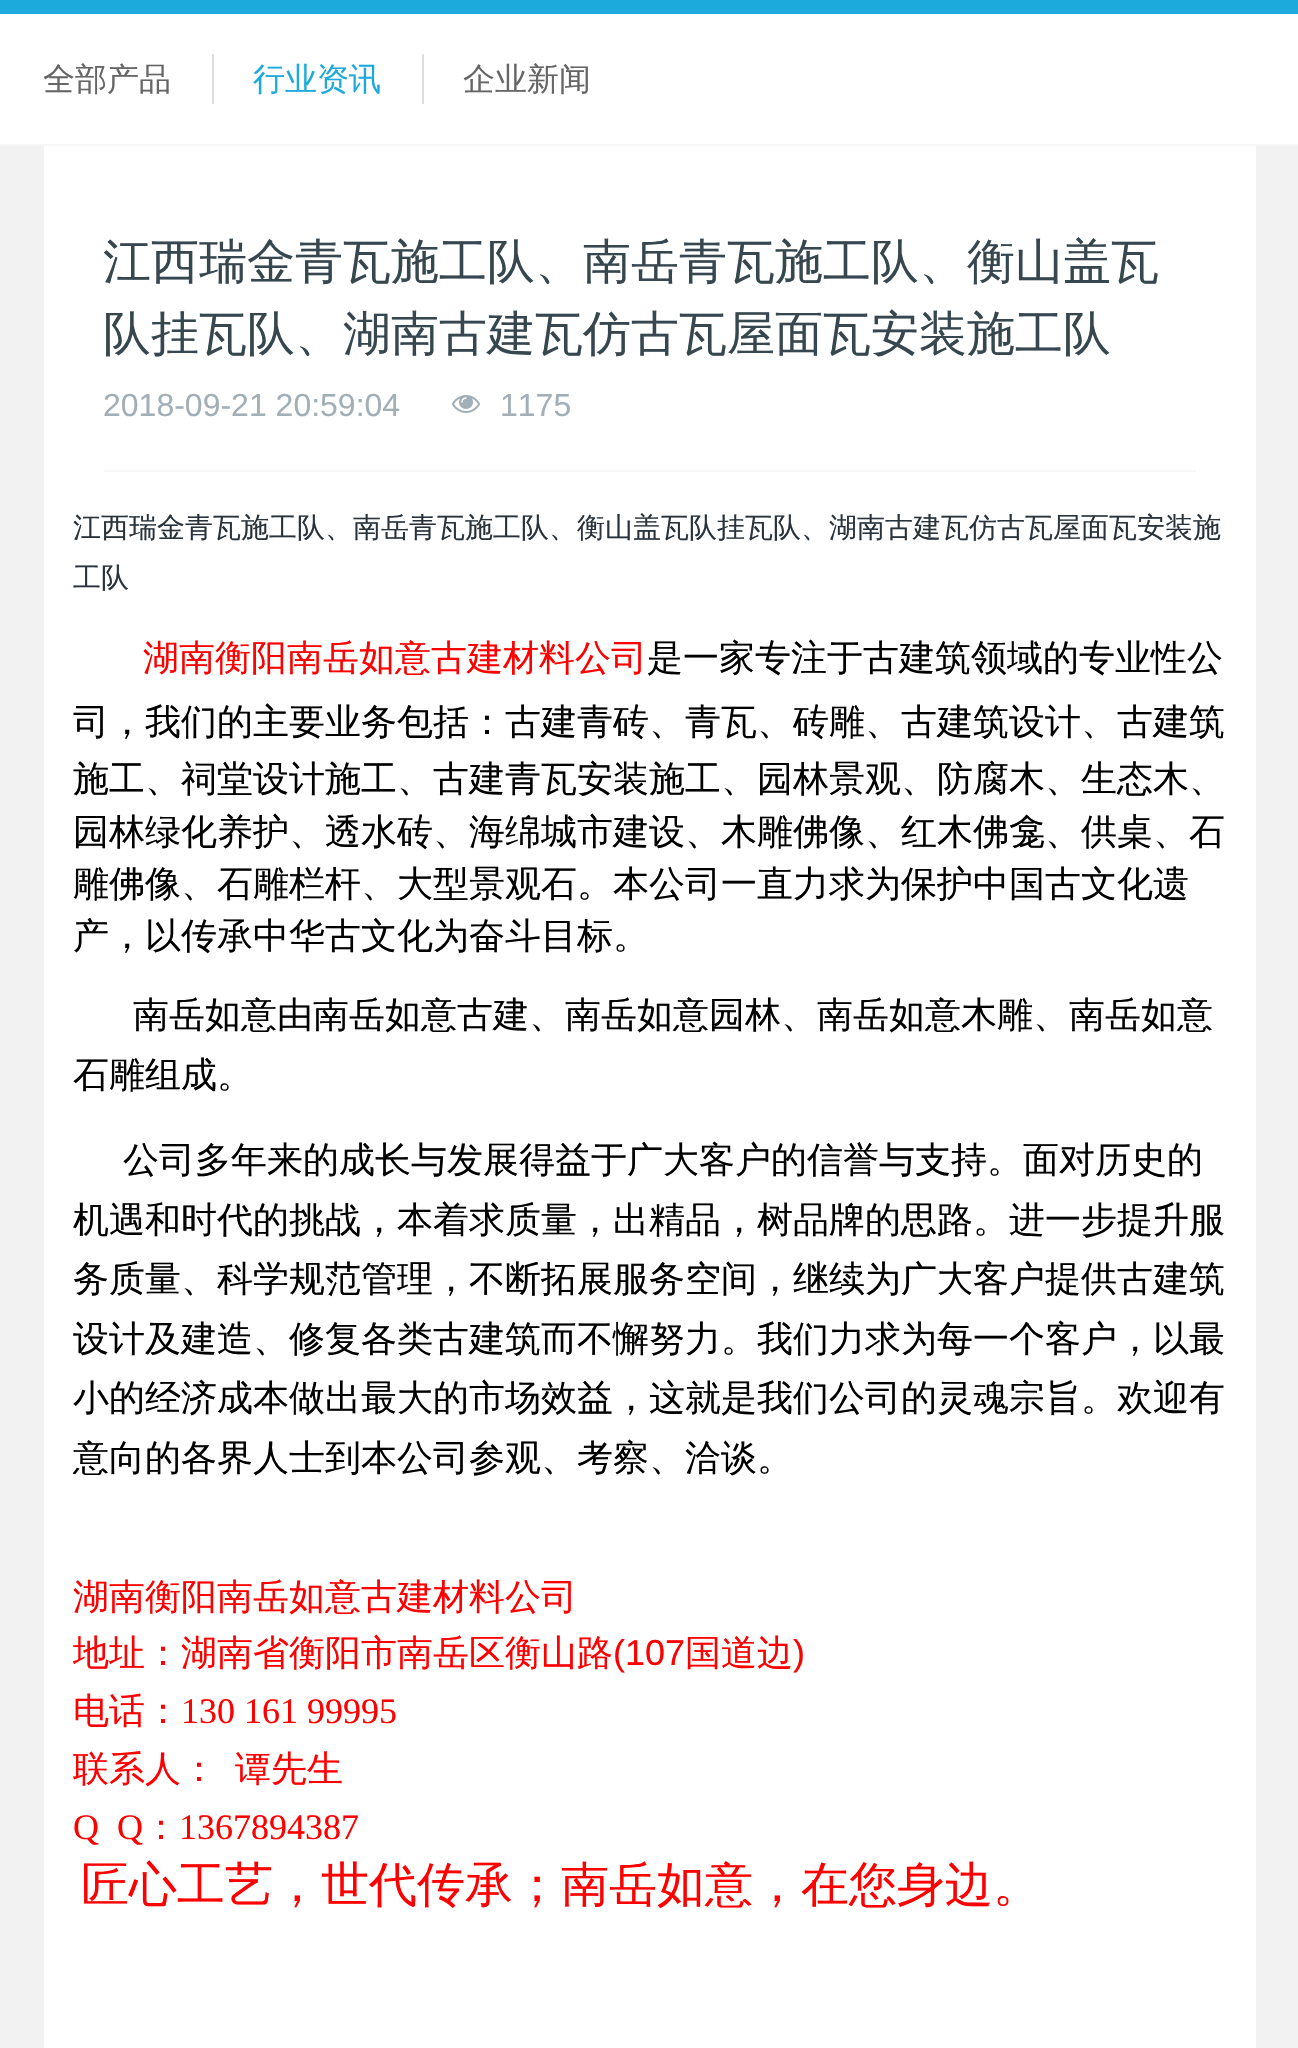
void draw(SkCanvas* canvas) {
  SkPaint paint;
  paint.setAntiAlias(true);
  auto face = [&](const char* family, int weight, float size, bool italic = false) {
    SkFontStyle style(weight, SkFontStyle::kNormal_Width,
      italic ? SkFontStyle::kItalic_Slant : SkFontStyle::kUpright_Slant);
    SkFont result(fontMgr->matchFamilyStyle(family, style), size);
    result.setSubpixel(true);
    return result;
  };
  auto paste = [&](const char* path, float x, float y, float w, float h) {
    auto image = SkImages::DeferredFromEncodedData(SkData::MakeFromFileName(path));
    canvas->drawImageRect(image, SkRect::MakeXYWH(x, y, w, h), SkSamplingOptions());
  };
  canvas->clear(0xffffffff);
  {
    const struct { float x, y, w, h; SkColor color; } items[] = {
      {0, 0, 1298, 14, 0xff1baadb},
      {212, 54, 2, 50, 0xffdddddd},
      {422, 54, 2, 50, 0xffdddddd},
      {0, 146, 1298, 1902, 0xfff2f2f2},
      {0, 144, 1298, 2, 0xfff7f7f7},
      {44, 146, 1212, 1902, 0xffffffff},
      {104, 470, 1092, 2, 0xfff7f7f7},
    };
    for (auto [x, y, w, h, color] : items) {
      paint.setColor(color);
      canvas->drawRect(SkRect::MakeXYWH(x, y, w, h), paint);
    }
  }
  paste("img/1.png", 452, 395, 28, 18);
  auto f0 = face("WenQuanYi Zen Hei", 500, 32);
  paint.setColor(0xff666666);
  canvas->drawString("全部产品", 43, 90, f0, paint);
  paint.setColor(0xff1baadb);
  canvas->drawString("行业资讯", 253, 90, f0, paint);
  paint.setColor(0xff666666);
  canvas->drawString("企业新闻", 463, 90, f0, paint);
  auto f1 = face("WenQuanYi Zen Hei", 500, 48);
  paint.setColor(0xff37474f);
  canvas->drawString("江西瑞金青瓦施工队、南岳青瓦施工队、衡山盖瓦", 103, 278, f1, paint);
  canvas->drawString("队挂瓦队、湖南古建瓦仿古瓦屋面瓦安装施工队", 103, 350, f1, paint);
  auto f2 = face("Liberation Sans", 400, 32);
  paint.setColor(0xffa3afb7);
  canvas->drawString("2018-09-21 20:59:04", 103, 416, f2, paint);
  canvas->drawString("1175", 500, 416, f2, paint);
  auto f3 = face("WenQuanYi Zen Hei", 500, 28);
  paint.setColor(0xff2a333c);
  canvas->drawString("江西瑞金青瓦施工队、南岳青瓦施工队、衡山盖瓦队挂瓦队、湖南古建瓦仿古瓦屋面瓦安装施", 73, 537, f3, paint);
  canvas->drawString("工队", 73, 587, f3, paint);
  auto f4 = face("WenQuanYi Zen Hei", 500, 36);
  paint.setColor(0xffff0000);
  canvas->drawString("湖南衡阳南岳如意古建材料公司", 143, 670, f4, paint);
  paint.setColor(0xff000000);
  {
    const struct { const char* s; float x, y; } items[] = {
      {"是一家专注于古建筑领域的专业性公", 647, 670},
      {"司，我们的主要业务包括：古建青砖、青瓦、砖雕、古建筑设计、古建筑", 73, 734},
      {"施工、祠堂设计施工、古建青瓦安装施工、园林景观、防腐木、生态木、", 73, 791},
      {"园林绿化养护、透水砖、海绵城市建设、木雕佛像、红木佛龛、供桌、石", 73, 844},
      {"雕佛像、石雕栏杆、大型景观石。本公司一直力求为保护中国古文化遗", 73, 896},
      {"产，以传承中华古文化为奋斗目标。", 73, 948},
      {"南岳如意由南岳如意古建、南岳如意园林、南岳如意木雕、南岳如意", 133, 1027},
      {"石雕组成。", 73, 1087},
      {"公司多年来的成长与发展得益于广大客户的信誉与支持。面对历史的", 123, 1172},
      {"机遇和时代的挑战，本着求质量，出精品，树品牌的思路。进一步提升服", 73, 1232},
      {"务质量、科学规范管理，不断拓展服务空间，继续为广大客户提供古建筑", 73, 1291},
      {"设计及建造、修复各类古建筑而不懈努力。我们力求为每一个客户，以最", 73, 1351},
      {"小的经济成本做出最大的市场效益，这就是我们公司的灵魂宗旨。欢迎有", 73, 1410},
      {"意向的各界人士到本公司参观、考察、洽谈。", 73, 1470},
    };
    for (auto [s, x, y] : items) {
      canvas->drawString(s, x, y, f4, paint);
    }
  }
  paint.setColor(0xffff0000);
  canvas->drawString("湖南衡阳南岳如意古建材料公司", 73, 1609, f4, paint);
  canvas->drawString("地址：湖南省衡阳市南岳区衡山路", 73, 1665, f4, paint);
  auto f5 = face("Liberation Sans", 400, 36);
  canvas->drawString("(107", 613, 1665, f5, paint);
  canvas->drawString("国道边", 685, 1665, f4, paint);
  canvas->drawString(")", 793, 1665, f5, paint);
  canvas->drawString("电话：", 73, 1723, f4, paint);
  auto f6 = face("Liberation Serif", 400, 36);
  canvas->drawString("130 161 99995", 181, 1723, f6, paint);
  canvas->drawString("联系人：", 73, 1781, f4, paint);
  canvas->drawString("谭先生", 235, 1781, f4, paint);
  canvas->drawString("Q  Q", 73, 1839, f6, paint);
  canvas->drawString("：", 143, 1839, f4, paint);
  canvas->drawString("1367894387", 179, 1839, f6, paint);
  canvas->drawString("匠心工艺，世代传承；南岳如意，在您身边。", 81, 1901, f1, paint);
}
